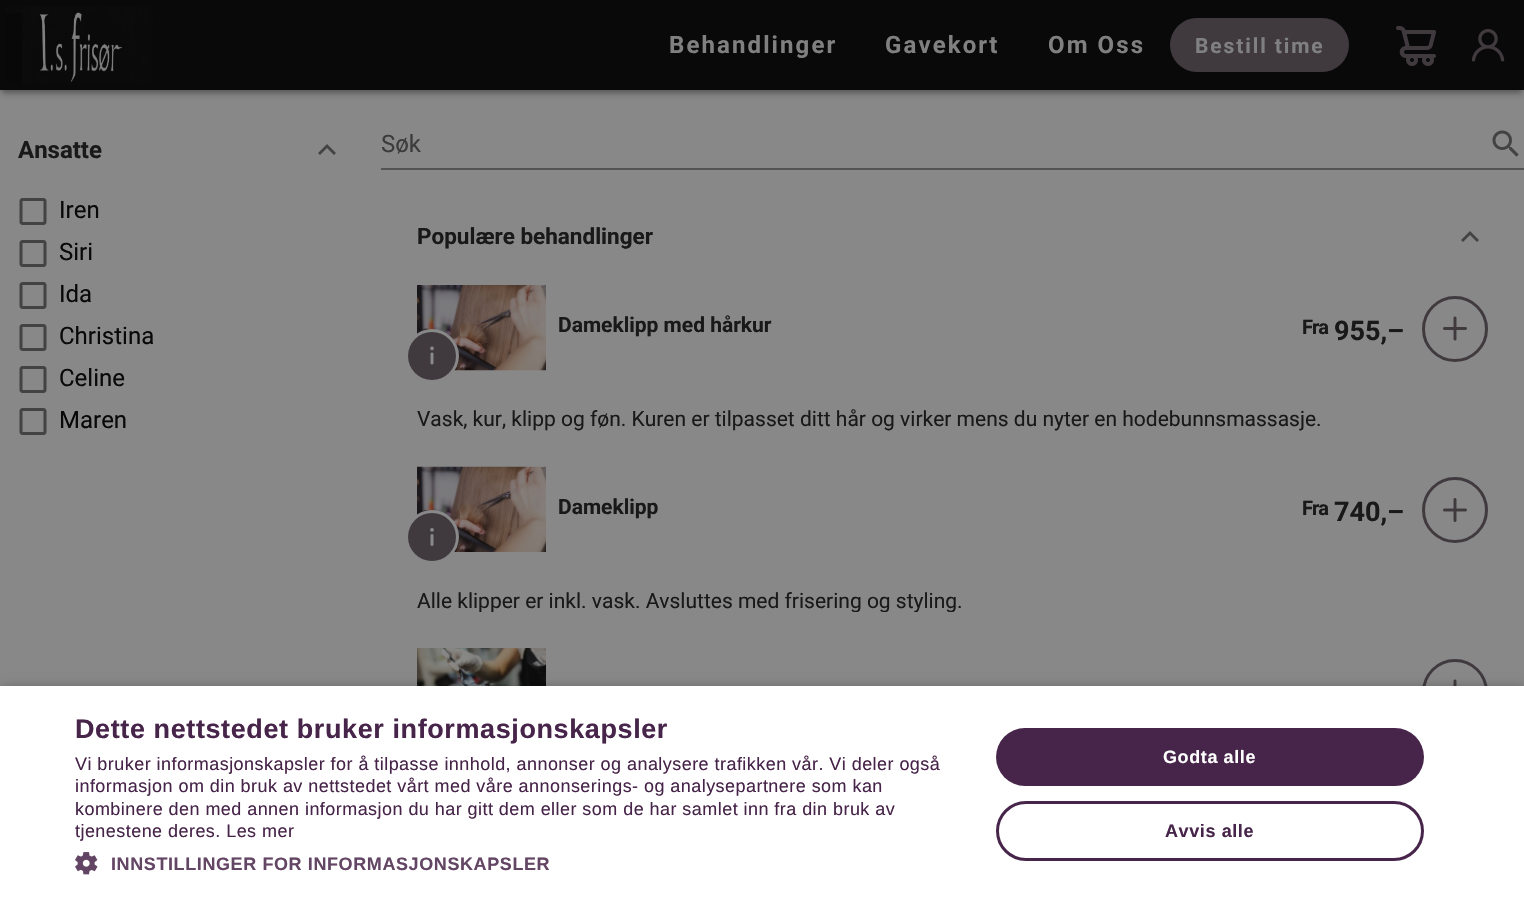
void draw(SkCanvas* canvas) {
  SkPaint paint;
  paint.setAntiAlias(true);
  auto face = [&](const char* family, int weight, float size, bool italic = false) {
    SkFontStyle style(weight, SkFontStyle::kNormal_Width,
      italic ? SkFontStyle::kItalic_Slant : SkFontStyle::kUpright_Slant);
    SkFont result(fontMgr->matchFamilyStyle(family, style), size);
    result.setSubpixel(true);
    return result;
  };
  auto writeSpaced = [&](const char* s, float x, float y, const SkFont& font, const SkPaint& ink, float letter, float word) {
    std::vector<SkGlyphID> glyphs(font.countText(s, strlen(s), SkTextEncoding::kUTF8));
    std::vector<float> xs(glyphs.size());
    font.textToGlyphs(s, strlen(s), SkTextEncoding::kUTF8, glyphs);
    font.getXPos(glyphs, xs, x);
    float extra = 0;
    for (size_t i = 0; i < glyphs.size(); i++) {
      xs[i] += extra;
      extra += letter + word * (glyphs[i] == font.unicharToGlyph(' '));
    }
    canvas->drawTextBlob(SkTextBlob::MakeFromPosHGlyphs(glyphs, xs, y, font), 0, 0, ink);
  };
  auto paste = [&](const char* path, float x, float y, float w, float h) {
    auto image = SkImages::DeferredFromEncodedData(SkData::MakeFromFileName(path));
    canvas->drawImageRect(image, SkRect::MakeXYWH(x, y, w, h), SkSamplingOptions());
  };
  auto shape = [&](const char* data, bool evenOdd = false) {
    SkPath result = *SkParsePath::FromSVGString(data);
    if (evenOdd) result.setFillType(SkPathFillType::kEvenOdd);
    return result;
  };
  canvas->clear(0xff888888);
  paint.setColor(0x1f090909);
  paint.setMaskFilter(SkMaskFilter::MakeBlur(kNormal_SkBlurStyle, 6));
  canvas->drawRect(SkRect::MakeXYWH(0, 2, 1524, 90), paint);
  paint.setMaskFilter(nullptr);
  paint.setColor(0x24090909);
  paint.setMaskFilter(SkMaskFilter::MakeBlur(kNormal_SkBlurStyle, 3));
  canvas->drawRect(SkRect::MakeXYWH(0, 5, 1524, 90), paint);
  paint.setMaskFilter(nullptr);
  paint.setColor(0x33090909);
  paint.setMaskFilter(SkMaskFilter::MakeBlur(kNormal_SkBlurStyle, 2));
  canvas->drawRect(SkRect::MakeXYWH(3, 8, 1518, 84), paint);
  paint.setMaskFilter(nullptr);
  paint.setColor(0xff090909);
  canvas->drawRect(SkRect::MakeXYWH(0, 0, 1524, 90), paint);
  paste("img/1.png", 6, 6, 147, 78);
  paint.setColor(0xff403a3f);
  canvas->drawRoundRect(SkRect::MakeXYWH(1170, 18, 179, 54), 27, 27, paint);
  paste("img/2.png", 1396, 26, 40, 40);
  paste("img/3.png", 1471, 29, 34, 33);
  paint.setColor(0xff434343);
  canvas->drawPath(shape("M334 155L327 148L320 155L318 153L327 144L336 153Z"), paint);
  paste("img/4.png", 19, 198, 28, 27);
  paste("img/4.png", 19, 240, 28, 27);
  paste("img/4.png", 19, 282, 28, 27);
  paste("img/4.png", 19, 324, 28, 27);
  paste("img/4.png", 19, 366, 28, 27);
  paste("img/4.png", 19, 408, 28, 27);
  paste("img/5.png", 1492, 130, 27, 27);
  paint.setColor(0xff535353);
  canvas->drawRect(SkRect::MakeXYWH(381, 168, 1143, 2), paint);
  paint.setColor(0xff434343);
  canvas->drawPath(shape("M1477 242L1470 235L1463 242L1461 240L1470 231L1479 240Z"), paint);
  paste("img/6.png", 417, 285, 129, 86);
  paint.setColor(0xff888888);
  canvas->drawCircle(432, 356, 27, paint);
  paint.setColor(0xff403a3f);
  canvas->drawCircle(432, 356, 24, paint);
  paste("img/7.png", 430, 346, 4, 19);
  paint.setStroke(true);
  paint.setStrokeWidth(3);
  canvas->drawCircle(1455, 329, 31.5f, paint);
  paste("img/8.png", 1443, 316, 24, 25);
  paste("img/9.png", 417, 466, 129, 86);
  paint.setStroke(false);
  paint.setColor(0xff888888);
  canvas->drawCircle(432, 537, 27, paint);
  paint.setColor(0xff403a3f);
  canvas->drawCircle(432, 537, 24, paint);
  paste("img/10.png", 430, 528, 4, 18);
  paint.setStroke(true);
  canvas->drawCircle(1455, 510, 31.5f, paint);
  paste("img/11.png", 1443, 498, 24, 24);
  paste("img/12.png", 417, 648, 129, 38);
  canvas->drawCircle(1455, 692, 31.5f, paint);
  paste("img/13.png", 1453, 679, 4, 7);
  paint.setStroke(false);
  paint.setColor(0x59000000);
  paint.setMaskFilter(SkMaskFilter::MakeBlur(kNormal_SkBlurStyle, 6));
  canvas->drawRect(SkRect::MakeXYWH(2, 689, 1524, 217), paint);
  paint.setMaskFilter(nullptr);
  paint.setColor(0xffffffff);
  canvas->drawRect(SkRect::MakeXYWH(0, 686, 1524, 217), paint);
  paste("img/14.png", 75, 852, 23, 23);
  paint.setColor(0xff472449);
  canvas->drawRoundRect(SkRect::MakeXYWH(996, 728, 428, 58), 29, 29, paint);
  paint.setStroke(true);
  canvas->drawRoundRect(SkRect::MakeXYWH(997.5f, 802.5f, 425, 57), 28.5f, 28.5f, paint);
  auto f0 = face("Roboto", 700, 24);
  paint.setStroke(false);
  paint.setColor(0xff808080);
  {
    const struct { const char* s; float x, y; } items[] = {
      {"Behandlinger", 669, 53},
      {"Gavekort", 885, 53},
      {"Om Oss", 1048, 53},
    };
    for (auto [s, x, y] : items) {
      writeSpaced(s, x, y, f0, paint, 2.1f, 0);
    }
  }
  auto f1 = face("Roboto", 700, 21);
  writeSpaced("Bestill time", 1195, 53, f1, paint, 1.9f, 0);
  paint.setColor(0xff191919);
  canvas->drawString("Ansatte", 18, 158, f0, paint);
  auto f2 = face("Roboto", 400, 24);
  paint.setColor(0xff090909);
  {
    const struct { const char* s; float x, y; } items[] = {
      {"Iren", 59, 218},
      {"Siri", 59, 260},
      {"Ida", 59, 302},
      {"Christina", 59, 344},
      {"Celine", 59, 386},
      {"Maren", 59, 428},
    };
    for (auto [s, x, y] : items) {
      canvas->drawString(s, x, y, f2, paint);
    }
  }
  paint.setColor(0xff3c3c3c);
  canvas->drawString("Søk", 381, 152, f2, paint);
  auto f3 = face("Roboto", 700, 22.5f);
  paint.setColor(0xff191919);
  canvas->drawString("Populære behandlinger", 417, 244, f3, paint);
  canvas->drawString("Dameklipp med hårkur", 558, 332, f1, paint);
  auto f4 = face("Roboto", 700, 20);
  writeSpaced("Fra", 1302, 334, f4, paint, -1, 0);
  auto f5 = face("Roboto", 700, 27);
  canvas->drawString("955,–", 1334, 340, f5, paint);
  auto f6 = face("Roboto", 400, 21);
  canvas->drawString("Vask, kur, klipp og føn. Kuren er tilpasset ditt hår og virker mens du nyter en hodebunnsmassasje.", 417, 426, f6, paint);
  canvas->drawString("Dameklipp", 558, 514, f1, paint);
  writeSpaced("Fra", 1302, 515, f4, paint, -1, 0);
  canvas->drawString("740,–", 1334, 521, f5, paint);
  canvas->save();
  canvas->clipRect(SkRect::MakeXYWH(417, 588, 1035, 24));
  canvas->drawString("Alle klipper er inkl. vask. Avsluttes med frisering og styling.", 417, 608, f6, paint);
  canvas->restore();
  auto f7 = face("Liberation Sans", 700, 27);
  paint.setColor(0xff472449);
  writeSpaced("Dette nettstedet bruker informasjonskapsler", 75, 738, f7, paint, 0.6f, 0);
  auto f8 = face("Liberation Sans", 400, 18);
  {
    const struct { const char* s; float x, y; } items[] = {
      {"Vi bruker informasjonskapsler for å tilpasse innhold, annonser og analysere trafikken vår. Vi deler også", 75, 770},
      {"informasjon om din bruk av nettstedet vårt med våre annonserings- og analysepartnere som kan", 75, 792},
      {"kombinere den med annen informasjon du har gitt dem eller som de har samlet inn fra din bruk av", 75, 815},
      {"tjenestene deres. Les mer", 75, 837},
    };
    for (auto [s, x, y] : items) {
      writeSpaced(s, x, y, f8, paint, 0.45f, 0);
    }
  }
  auto f9 = face("Liberation Sans", 700, 18);
  paint.setColor(0xff634564);
  writeSpaced("INNSTILLINGER FOR INFORMASJONSKAPSLER", 111, 870, f9, paint, 0.6f, 0);
  paint.setColor(0xffffffff);
  writeSpaced("Godta alle", 1163, 763, f9, paint, 0.6f, 0);
  paint.setColor(0xff472449);
  writeSpaced("Avvis alle", 1165, 837, f9, paint, 0.6f, 0);
}
